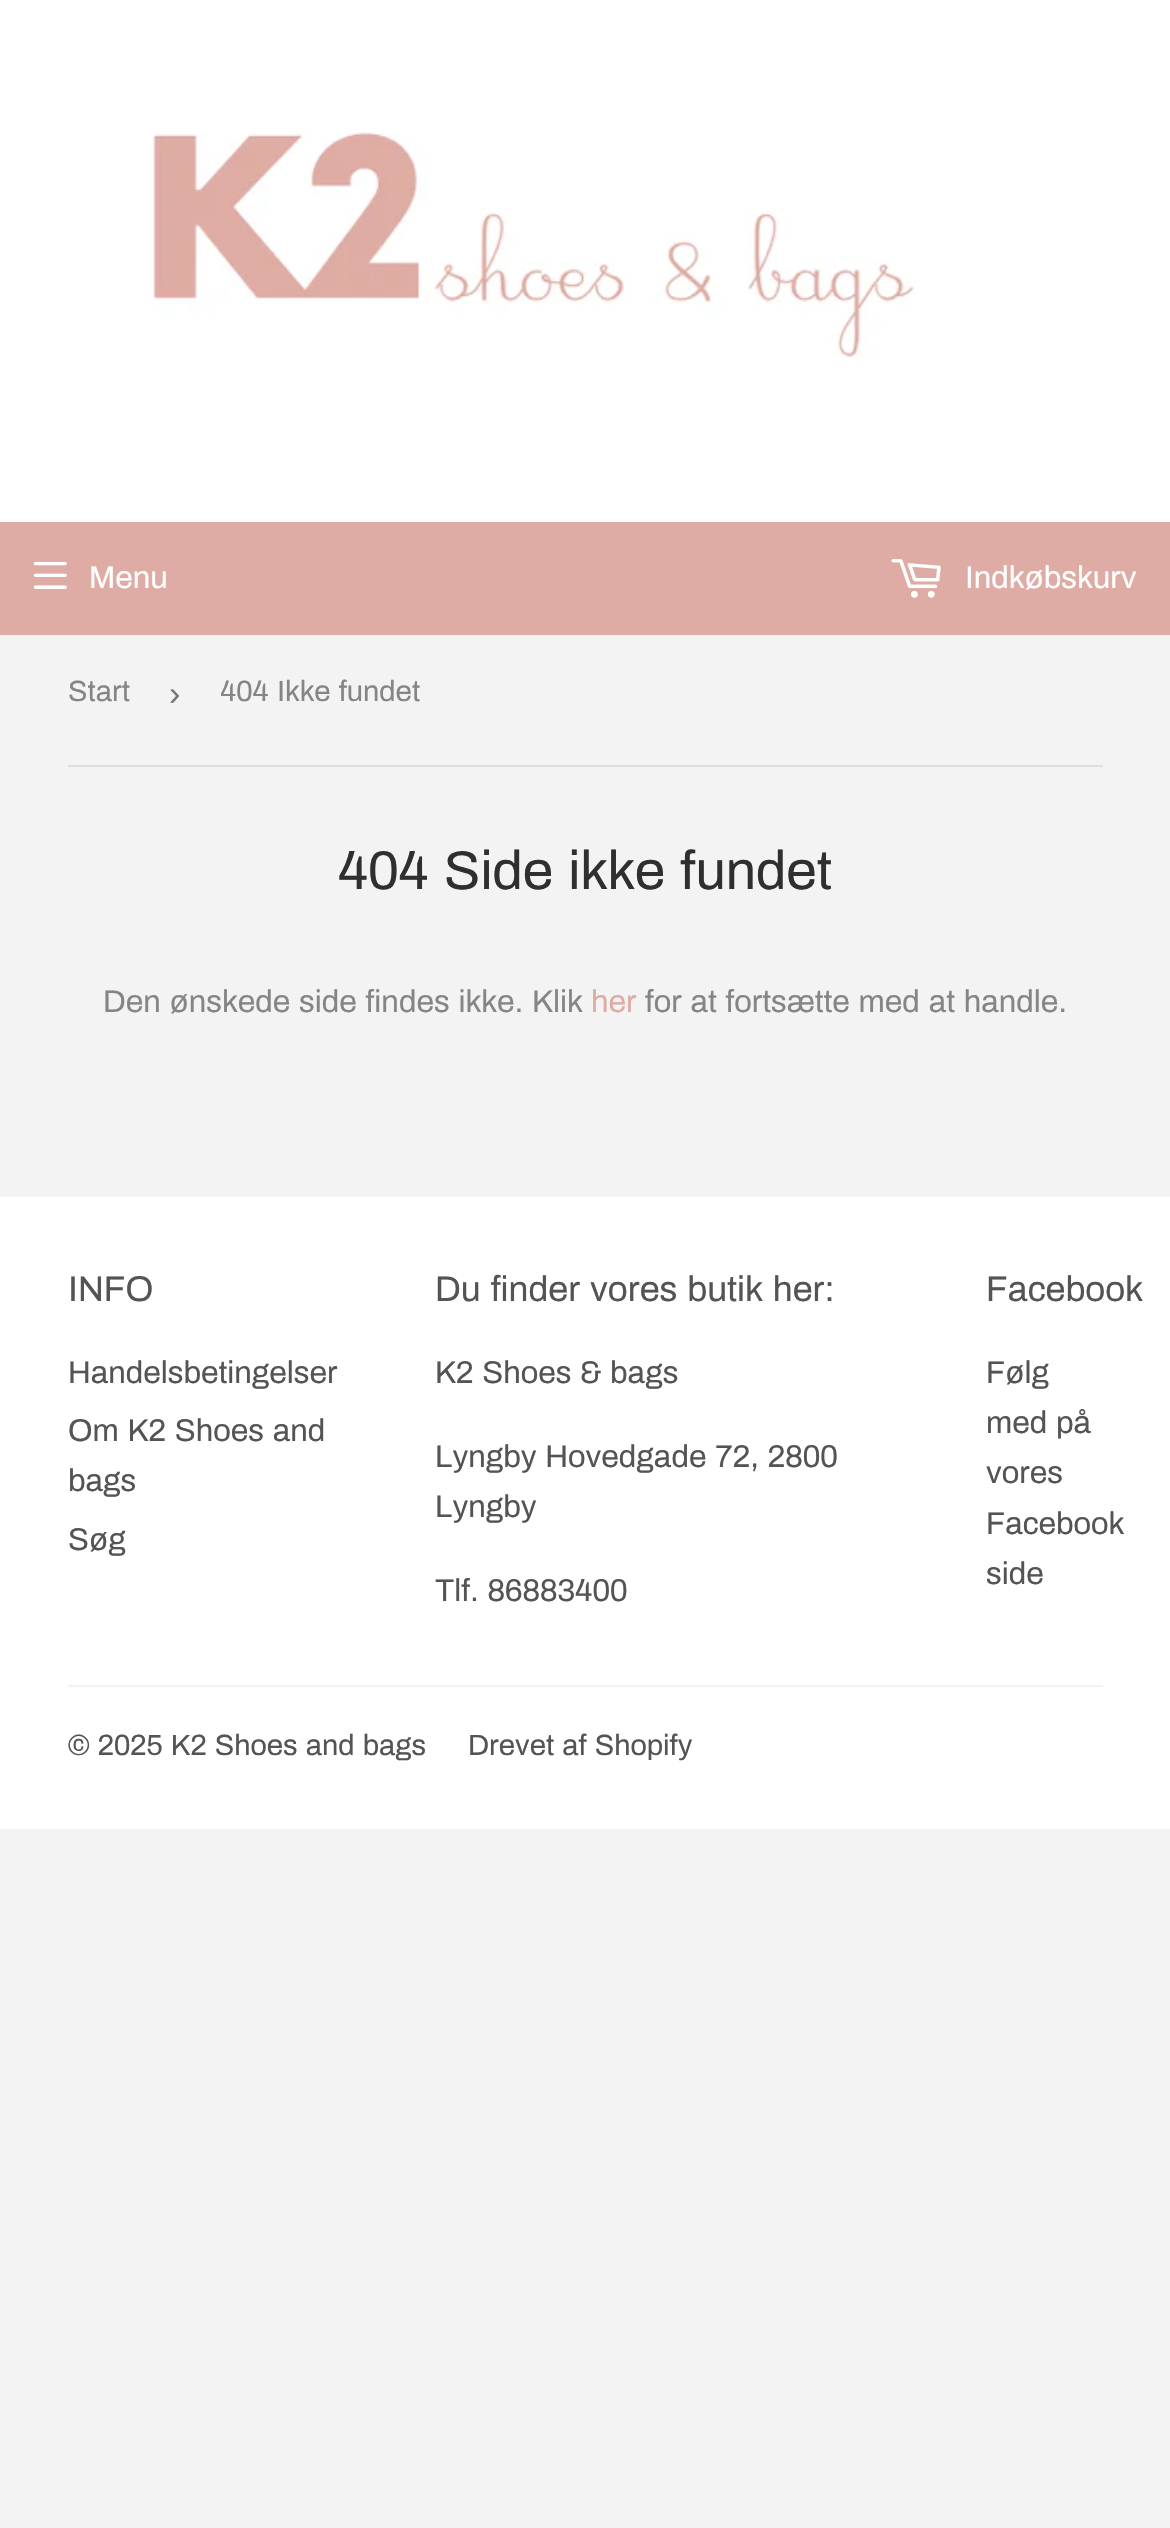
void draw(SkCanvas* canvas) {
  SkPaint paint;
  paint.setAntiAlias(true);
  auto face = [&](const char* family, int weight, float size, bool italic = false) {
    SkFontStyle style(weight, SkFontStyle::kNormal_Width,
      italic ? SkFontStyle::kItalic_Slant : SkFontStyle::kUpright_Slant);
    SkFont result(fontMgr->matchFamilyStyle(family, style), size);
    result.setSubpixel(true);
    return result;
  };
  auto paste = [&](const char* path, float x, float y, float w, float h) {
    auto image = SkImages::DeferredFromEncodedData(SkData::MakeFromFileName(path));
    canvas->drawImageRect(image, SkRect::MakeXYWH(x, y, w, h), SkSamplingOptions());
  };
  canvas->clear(0xfff3f3f3);
  paint.setColor(0xffffffff);
  canvas->drawRect(SkRect::MakeXYWH(0, 0, 1170, 522), paint);
  paste("img/1.png", 149, 132, 767, 227);
  paint.setColor(0xffdeaca4);
  canvas->drawRect(SkRect::MakeXYWH(0, 522, 1170, 113), paint);
  paste("img/2.png", 33, 561, 34, 28);
  paste("img/3.png", 891, 559, 50, 39);
  {
    const struct { float x, y, w, h; SkColor color; } items[] = {
      {68, 765, 1035, 2, 0xffdedede},
      {0, 1197, 1170, 632, 0xffffffff},
      {68, 1685, 1035, 2, 0xfff2f2f2},
    };
    for (auto [x, y, w, h, color] : items) {
      paint.setColor(color);
      canvas->drawRect(SkRect::MakeXYWH(x, y, w, h), paint);
    }
  }
  auto f0 = face("Archivo", 400, 31.5f);
  paint.setColor(0xffffffff);
  canvas->drawString("Menu", 89, 588, f0, paint);
  canvas->drawString("Indkøbskurv", 965, 588, f0, paint);
  auto f1 = face("Archivo", 400, 29.25f);
  paint.setColor(0xff858585);
  canvas->drawString("Start", 68, 701, f1, paint);
  auto f2 = face("Liberation Sans", 400, 34);
  paint.setColor(0xff767676);
  canvas->drawString("›", 169, 705, f2, paint);
  canvas->save();
  canvas->clipRect(SkRect::MakeXYWH(221, 635, 216, 114));
  paint.setColor(0xff858585);
  canvas->drawString("404 Ikke fundet", 220, 701, f1, paint);
  canvas->restore();
  auto f3 = face("Archivo", 400, 54.5f);
  paint.setColor(0xff2f2f2f);
  canvas->drawString("404 Side ikke fundet", 338, 889, f3, paint);
  paint.setColor(0xff858585);
  canvas->drawString("Den ønskede side findes ikke. Klik", 103, 1012, f0, paint);
  paint.setColor(0xffdeaca4);
  canvas->drawString("her", 591, 1012, f0, paint);
  paint.setColor(0xff858585);
  canvas->drawString("for at fortsætte med at handle.", 645, 1012, f0, paint);
  auto f4 = face("Archivo", 400, 35.75f);
  paint.setColor(0xff545454);
  canvas->drawString("INFO", 68, 1301, f4, paint);
  {
    const struct { const char* s; float x, y; } items[] = {
      {"Handelsbetingelser", 68, 1383},
      {"Om K2 Shoes and", 68, 1441},
      {"bags", 68, 1491},
      {"Søg", 68, 1550},
    };
    for (auto [s, x, y] : items) {
      canvas->drawString(s, x, y, f0, paint);
    }
  }
  canvas->drawString("Du finder vores butik her:", 435, 1301, f4, paint);
  {
    const struct { const char* s; float x, y; } items[] = {
      {"K2 Shoes & bags", 435, 1383},
      {"Lyngby Hovedgade 72, 2800", 435, 1467},
      {"Lyngby", 435, 1517},
      {"Tlf. 86883400", 435, 1601},
    };
    for (auto [s, x, y] : items) {
      canvas->drawString(s, x, y, f0, paint);
    }
  }
  canvas->drawString("Facebook", 986, 1301, f4, paint);
  {
    const struct { const char* s; float x, y; } items[] = {
      {"Følg", 986, 1383},
      {"med på", 986, 1433},
      {"vores", 986, 1483},
      {"Facebook", 986, 1534},
      {"side", 986, 1584},
    };
    for (auto [s, x, y] : items) {
      canvas->drawString(s, x, y, f0, paint);
    }
  }
  canvas->drawString("© 2025 K2 Shoes and bags", 68, 1755, f1, paint);
  canvas->drawString("Drevet af Shopify", 468, 1755, f1, paint);
}
